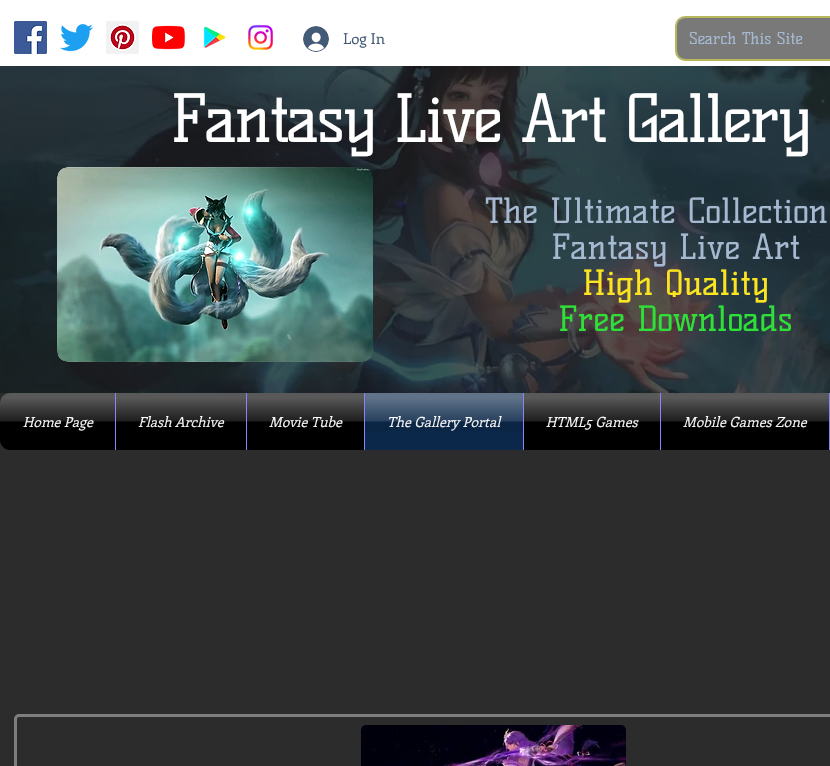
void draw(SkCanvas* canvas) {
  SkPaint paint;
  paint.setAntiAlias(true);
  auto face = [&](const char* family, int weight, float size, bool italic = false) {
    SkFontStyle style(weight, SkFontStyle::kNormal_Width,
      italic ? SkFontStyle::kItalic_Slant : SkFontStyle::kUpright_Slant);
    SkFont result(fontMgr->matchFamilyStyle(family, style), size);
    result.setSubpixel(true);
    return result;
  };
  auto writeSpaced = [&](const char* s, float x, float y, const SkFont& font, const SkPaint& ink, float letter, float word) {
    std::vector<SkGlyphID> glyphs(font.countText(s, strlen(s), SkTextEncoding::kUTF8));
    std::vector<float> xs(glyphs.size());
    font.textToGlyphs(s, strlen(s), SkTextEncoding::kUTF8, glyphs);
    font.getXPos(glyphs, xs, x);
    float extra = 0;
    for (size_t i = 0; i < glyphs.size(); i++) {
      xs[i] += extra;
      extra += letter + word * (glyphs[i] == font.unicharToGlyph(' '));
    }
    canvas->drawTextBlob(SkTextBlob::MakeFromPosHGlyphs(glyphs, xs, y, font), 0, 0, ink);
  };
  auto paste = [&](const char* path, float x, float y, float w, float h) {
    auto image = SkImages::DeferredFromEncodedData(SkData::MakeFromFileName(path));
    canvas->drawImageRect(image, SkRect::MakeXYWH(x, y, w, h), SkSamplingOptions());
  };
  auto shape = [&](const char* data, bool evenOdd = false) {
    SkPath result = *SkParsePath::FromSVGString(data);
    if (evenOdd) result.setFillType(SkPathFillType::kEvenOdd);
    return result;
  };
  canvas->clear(0xffffffff);
  paste("img/1.png", 14, 21, 33, 33);
  paste("img/2.png", 60, 24, 33, 28);
  paste("img/3.png", 106, 21, 33, 33);
  paste("img/4.png", 152, 25, 33, 25);
  paste("img/5.png", 203, 26, 23, 22);
  paste("img/6.png", 248, 25, 26, 25);
  paste("img/7.png", 303, 26, 26, 26);
  paint.setStroke(true);
  paint.setStrokeWidth(2);
  paint.setColor(0xffb7b75b);
  canvas->drawRoundRect(SkRect::MakeXYWH(676, 17, 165, 43), 9, 9, paint);
  paint.setStroke(false);
  paint.setColor(0x961b1b1b);
  canvas->drawRoundRect(SkRect::MakeXYWH(677, 18, 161, 41), 8, 8, paint);
  paint.setColor(0xff1b1b1b);
  canvas->drawRect(SkRect::MakeXYWH(0, 66, 830, 327), paint);
  paste("img/8.png", 0, 66, 830, 327);
  paste("img/9.png", 57, 167, 316, 195);
  paint.setColor(0xff2c2c2c);
  canvas->drawRect(SkRect::MakeXYWH(0, 393, 830, 373), paint);
  paste("img/10.png", 0, 393, 10, 10);
  paint.setColor(0xff000000);
  canvas->drawPath(shape("M10 393H115V450H10C4.5 450 0 445.5 0 440V403C0 397.5 4.5 393 10 393Z"), paint);
  {
    const struct { float x, y, w, h; SkColor color; } items[] = {
      {116, 393, 130, 57, 0xff000000},
      {115, 393, 1, 57, 0xff8c84fa},
      {247, 393, 117, 57, 0xff000000},
      {246, 393, 1, 57, 0xff8c84fa},
      {365, 393, 158, 57, 0xff0b2749},
      {364, 393, 1, 57, 0xff8c84fa},
      {524, 393, 136, 57, 0xff000000},
      {523, 393, 1, 57, 0xff8c84fa},
      {661, 393, 168, 57, 0xff000000},
      {660, 393, 1, 57, 0xff8c84fa},
      {829, 393, 1, 57, 0xff8c84fa},
    };
    for (auto [x, y, w, h, color] : items) {
      paint.setColor(color);
      canvas->drawRect(SkRect::MakeXYWH(x, y, w, h), paint);
    }
  }
  paint.setStroke(true);
  paint.setStrokeWidth(3);
  paint.setColor(0xff7e7e7e);
  canvas->drawRoundRect(SkRect::MakeXYWH(15.5f, 715.5f, 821, 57), 3.5f, 3.5f, paint);
  paste("img/17.png", 361, 725, 265, 41);
  auto f0 = face("Enriqueta", 400, 15);
  paint.setStroke(false);
  paint.setColor(0xff445b77);
  canvas->drawString("Log In", 343, 44, f0, paint);
  auto f1 = face("Kelly Slab", 400, 16);
  paint.setColor(0xffa5b9d1);
  canvas->drawString("Search This Site", 689, 44, f1, paint);
  auto f2 = face("Kelly Slab", 400, 65);
  paint.setColor(0xffffffff);
  writeSpaced("Fantasy Live Art Gallery", 170, 142, f2, paint, -2.6f, 0);
  auto f3 = face("Kelly Slab", 400, 34);
  paint.setColor(0xffa5b9d1);
  canvas->drawString("The Ultimate Collection", 485, 223, f3, paint);
  canvas->drawString("Fantasy Live Art", 551, 259, f3, paint);
  paint.setColor(0xfffbe521);
  canvas->drawString("High Quality", 582, 295, f3, paint);
  paint.setColor(0xff2ee037);
  canvas->drawString("Free Downloads", 558, 331, f3, paint);
  auto f4 = face("Enriqueta", 400, 14, true);
  paint.setColor(0xffffffff);
  canvas->drawString("Home Page", 23, 427, f4, paint);
  paste("img/11.png", 0, 393, 115, 38);
  canvas->drawString("Flash Archive", 138, 427, f4, paint);
  paste("img/12.png", 116, 393, 130, 34);
  canvas->drawString("Movie Tube", 269, 427, f4, paint);
  paste("img/13.png", 247, 393, 117, 34);
  canvas->drawString("The Gallery Portal", 387, 427, f4, paint);
  paste("img/14.png", 365, 393, 158, 38);
  canvas->drawString("HTML5 Games", 546, 427, f4, paint);
  paste("img/15.png", 524, 393, 136, 37);
  canvas->drawString("Mobile Games Zone", 683, 427, f4, paint);
  paste("img/16.png", 661, 393, 168, 34);
}
